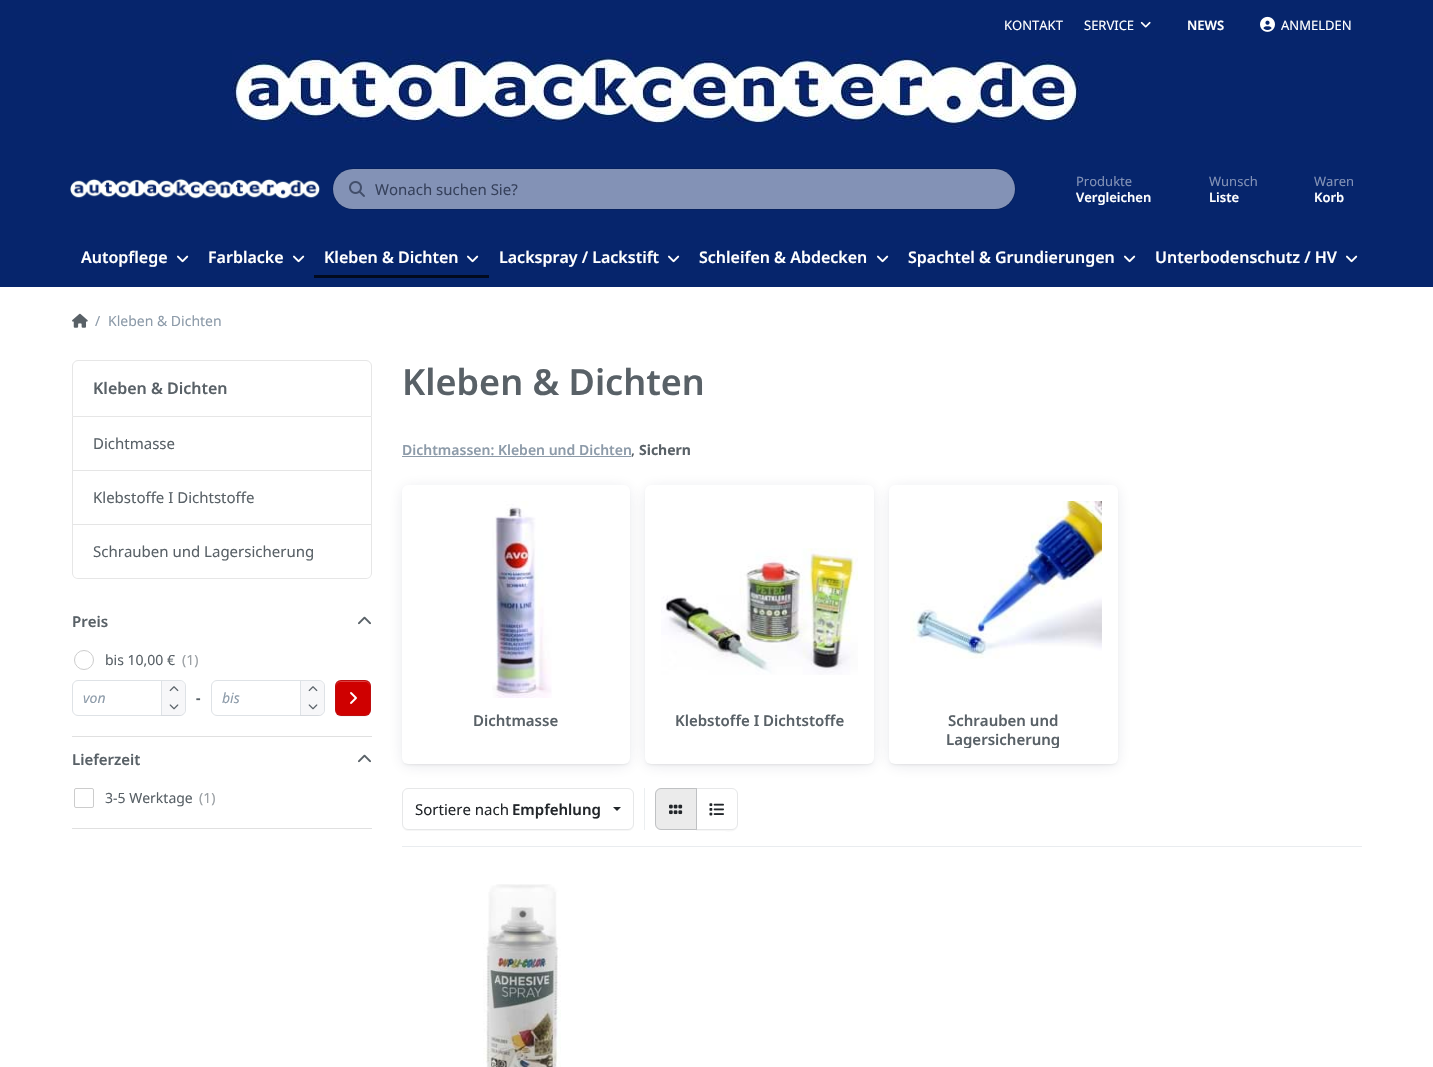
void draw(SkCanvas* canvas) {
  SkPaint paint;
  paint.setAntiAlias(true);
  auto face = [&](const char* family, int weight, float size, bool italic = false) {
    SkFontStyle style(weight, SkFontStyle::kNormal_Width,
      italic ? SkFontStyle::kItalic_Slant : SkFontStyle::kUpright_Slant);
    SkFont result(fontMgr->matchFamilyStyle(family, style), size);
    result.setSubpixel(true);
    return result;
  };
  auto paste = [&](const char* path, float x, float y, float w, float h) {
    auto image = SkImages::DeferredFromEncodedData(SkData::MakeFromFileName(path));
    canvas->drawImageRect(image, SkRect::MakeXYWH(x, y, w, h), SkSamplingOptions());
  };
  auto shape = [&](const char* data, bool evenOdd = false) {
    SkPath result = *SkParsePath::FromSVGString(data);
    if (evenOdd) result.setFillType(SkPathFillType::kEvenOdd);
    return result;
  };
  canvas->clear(0xffffffff);
  paint.setColor(0xff06256c);
  canvas->drawRect(SkRect::MakeXYWH(0, 0, 1433, 287), paint);
  paste("img/1.png", 1140, 21, 11, 7);
  paste("img/2.png", 1260, 16, 15, 16);
  paste("img/3.png", 232, 50, 848, 80);
  paste("img/4.png", 70, 178, 250, 21);
  paint.setColor(0xff8392b6);
  canvas->drawRoundRect(SkRect::MakeXYWH(333, 169, 682, 40), 20, 20, paint);
  paint.setStroke(true);
  paint.setStrokeWidth(1);
  paint.setColor(0x1f000000);
  canvas->drawRoundRect(SkRect::MakeXYWH(332.5f, 168.5f, 683, 41), 20.5f, 20.5f, paint);
  paste("img/5.png", 349, 181, 16, 16);
  paste("img/6.png", 177, 255, 12, 8);
  paste("img/6.png", 293, 255, 12, 8);
  paste("img/6.png", 467, 255, 12, 8);
  paint.setStroke(false);
  paint.setColor(0xff020a1e);
  canvas->drawRect(SkRect::MakeXYWH(314, 275, 175, 3), paint);
  paste("img/6.png", 668, 255, 12, 8);
  paste("img/6.png", 877, 255, 12, 8);
  paste("img/6.png", 1124, 255, 12, 8);
  paste("img/6.png", 1346, 255, 12, 8);
  paste("img/7.png", 72, 313, 16, 15);
  paint.setStroke(true);
  paint.setColor(0xffe6e6e6);
  canvas->drawPath(shape("M78 360.5H366C369 360.5 371.5 363 371.5 366V416.5H72.5V366C72.5 363 75 360.5 78 360.5Z"), paint);
  paint.setStroke(false);
  canvas->drawPath(shape("M372 417V471L371 470V417Z"), paint);
  paint.setColor(0x1a000000);
  canvas->drawPath(shape("M372 471H72L73 470H371Z"), paint);
  canvas->drawPath(shape("M72 471V417H73V470Z"), paint);
  paint.setColor(0xffe6e6e6);
  canvas->drawPath(shape("M372 471V525L371 524V471Z"), paint);
  paint.setColor(0x1a000000);
  canvas->drawPath(shape("M372 525H72L73 524H371Z"), paint);
  canvas->drawPath(shape("M72 525V471H73V524Z"), paint);
  paint.setColor(0xffe6e6e6);
  canvas->drawPath(shape("M72 525H372V573C372 576 369 579 366 579H78C75 579 72 576 72 573ZM73 525H371V573C371 576 369 578 366 578H78C75 578 73 576 73 573Z", true), paint);
  paint.setColor(0xffe0e0e0);
  canvas->drawRect(SkRect::MakeXYWH(72, 736, 300, 1), paint);
  paste("img/8.png", 358, 616, 13, 9);
  paint.setStroke(true);
  paint.setColor(0xffcccccc);
  canvas->drawCircle(84, 660, 9.5f, paint);
  paint.setColor(0xffdee2e6);
  canvas->drawRoundRect(SkRect::MakeXYWH(72.5f, 680.5f, 113, 35), 5.5f, 5.5f, paint);
  paint.setStroke(false);
  paint.setColor(0x0a22262a);
  canvas->drawPath(shape("M161 715V716H173C179 716 185 717 185 709C185 712.5 182.5 715 179 715Z"), paint);
  paint.setColor(0xfff7f7f9);
  canvas->drawPath(shape("M162 681H179C182.5 681 185 683.5 185 687V709C185 712.5 182.5 715 179 715H162Z"), paint);
  paint.setColor(0xffdee2e6);
  canvas->drawRect(SkRect::MakeXYWH(161, 681, 1, 34), paint);
  paste("img/9.png", 169, 686, 10, 6);
  paste("img/10.png", 169, 704, 10, 6);
  paint.setStroke(true);
  canvas->drawRoundRect(SkRect::MakeXYWH(211.5f, 680.5f, 113, 35), 5.5f, 5.5f, paint);
  paint.setStroke(false);
  paint.setColor(0x0a22262a);
  canvas->drawPath(shape("M300 715V716H312C318 716 324 717 324 709C324 712.5 321.5 715 318 715Z"), paint);
  paint.setColor(0xfff7f7f9);
  canvas->drawPath(shape("M301 681H318C321.5 681 324 683.5 324 687V709C324 712.5 321.5 715 318 715H301Z"), paint);
  paint.setColor(0xffdee2e6);
  canvas->drawRect(SkRect::MakeXYWH(300, 681, 1, 34), paint);
  paste("img/9.png", 308, 686, 10, 6);
  paste("img/10.png", 308, 704, 10, 6);
  paint.setColor(0xfff6f6f6);
  canvas->drawPath(shape("M335 710C335 717 339.5 717 345 717H361C366.5 717 371 717 371 710C371 713.5 368.5 716 365 716H341C337.5 716 335 713.5 335 710Z"), paint);
  paint.setColor(0xffcf0000);
  canvas->drawRoundRect(SkRect::MakeXYWH(335, 680, 36, 36), 6, 6, paint);
  paint.setColor(0xffdb4040);
  canvas->drawPath(shape("M341 682H365C368 682 370 684 370 687C370 681 366 681 361 681H345C340 681 336 681 336 687C336 684 338 682 341 682Z"), paint);
  paint.setStroke(true);
  paint.setColor(0x26596167);
  canvas->drawRoundRect(SkRect::MakeXYWH(335.5f, 680.5f, 35, 35), 5.5f, 5.5f, paint);
  paste("img/11.png", 350, 692, 7, 12);
  paint.setStroke(false);
  paint.setColor(0xffe0e0e0);
  canvas->drawRect(SkRect::MakeXYWH(72, 828, 300, 1), paint);
  paste("img/8.png", 358, 754, 13, 9);
  paint.setStroke(true);
  paint.setColor(0xffcccccc);
  canvas->drawRoundRect(SkRect::MakeXYWH(74.5f, 788.5f, 19, 19), 1.5f, 1.5f, paint);
  paint.setStroke(false);
  paint.setColor(0xff8d9ba9);
  canvas->drawRect(SkRect::MakeXYWH(402, 456, 229, 1), paint);
  paint.setColor(0x26000000);
  paint.setMaskFilter(SkMaskFilter::MakeBlur(kNormal_SkBlurStyle, 1.5f));
  canvas->drawRoundRect(SkRect::MakeXYWH(404, 489, 224, 275), 4, 4, paint);
  paint.setMaskFilter(nullptr);
  paint.setColor(0xfff6f6f6);
  canvas->drawPath(shape("M402 824V825C402 828 405 831 408 831H628C631 831 634 828 634 825V824C634 827 631 830 628 830H408C405 830 402 827 402 824Z"), paint);
  paint.setColor(0xffffffff);
  canvas->drawRoundRect(SkRect::MakeXYWH(402.5f, 788.5f, 231, 41), 5.5f, 5.5f, paint);
  paint.setStroke(true);
  paint.setColor(0xffe6e7e8);
  canvas->drawRoundRect(SkRect::MakeXYWH(402.5f, 788.5f, 231, 41), 5.5f, 5.5f, paint);
  paint.setStroke(false);
  paint.setColor(0xffebeef0);
  canvas->drawRect(SkRect::MakeXYWH(644, 788, 1, 42), paint);
  paint.setColor(0x1f1a214b);
  paint.setMaskFilter(SkMaskFilter::MakeBlur(kNormal_SkBlurStyle, 8));
  canvas->drawRoundRect(SkRect::MakeXYWH(404, 489, 224, 275), 4, 4, paint);
  paint.setMaskFilter(nullptr);
  paint.setColor(0xffffffff);
  canvas->drawRoundRect(SkRect::MakeXYWH(402, 485, 228, 279), 6, 6, paint);
  paste("img/12.png", 492, 501, 60, 197);
  paint.setColor(0x26000000);
  paint.setMaskFilter(SkMaskFilter::MakeBlur(kNormal_SkBlurStyle, 1.5f));
  canvas->drawRoundRect(SkRect::MakeXYWH(647, 489, 225, 275), 4, 4, paint);
  paint.setMaskFilter(nullptr);
  paint.setColor(0xfff6f6f6);
  canvas->drawPath(shape("M696 830V831H720C727 831 738 834 738 824C738 827 735 830 732 830Z"), paint);
  paint.setColor(0xffffffff);
  canvas->drawPath(shape("M696.5 788.5H732C735 788.5 737.5 791 737.5 794V824C737.5 827 735 829.5 732 829.5H696.5Z"), paint);
  paint.setStroke(true);
  paint.setColor(0xffe6e7e8);
  canvas->drawPath(shape("M696.5 788.5H732C735 788.5 737.5 791 737.5 794V824C737.5 827 735 829.5 732 829.5H696.5Z"), paint);
  paint.setStroke(false);
  paint.setColor(0xffebebeb);
  canvas->drawPath(shape("M661 788H697V830H661C657.5 830 655 827.5 655 824V794C655 790.5 657.5 788 661 788Z"), paint);
  paint.setStroke(true);
  paint.setColor(0x4d596167);
  canvas->drawPath(shape("M661 788.5H696.5V829.5H661C658 829.5 655.5 827 655.5 824V794C655.5 791 658 788.5 661 788.5Z"), paint);
  paint.setStroke(false);
  paint.setColor(0x1f1a214b);
  paint.setMaskFilter(SkMaskFilter::MakeBlur(kNormal_SkBlurStyle, 8));
  canvas->drawRoundRect(SkRect::MakeXYWH(647, 489, 225, 275), 4, 4, paint);
  paint.setMaskFilter(nullptr);
  paint.setColor(0xffffffff);
  canvas->drawRoundRect(SkRect::MakeXYWH(645, 485, 229, 279), 6, 6, paint);
  paste("img/13.png", 661, 548, 197, 127);
  paint.setColor(0x26000000);
  paint.setMaskFilter(SkMaskFilter::MakeBlur(kNormal_SkBlurStyle, 1.5f));
  canvas->drawRoundRect(SkRect::MakeXYWH(891, 489, 225, 275), 4, 4, paint);
  paint.setMaskFilter(nullptr);
  paint.setColor(0x1f1a214b);
  paint.setMaskFilter(SkMaskFilter::MakeBlur(kNormal_SkBlurStyle, 8));
  canvas->drawRoundRect(SkRect::MakeXYWH(891, 489, 225, 275), 4, 4, paint);
  paint.setMaskFilter(nullptr);
  paint.setColor(0xffffffff);
  canvas->drawRoundRect(SkRect::MakeXYWH(889, 485, 229, 279), 6, 6, paint);
  paste("img/14.png", 910, 501, 192, 158);
  paint.setColor(0xffe9ecef);
  canvas->drawRect(SkRect::MakeXYWH(402, 846, 960, 1), paint);
  paint.setColor(0xff22262a);
  canvas->drawPath(shape("M613 807H621L617 811Z"), paint);
  paste("img/15.png", 669, 804, 14, 11);
  paste("img/16.png", 709, 803, 15, 13);
  paste("img/17.png", 483, 884, 78, 183);
  auto f0 = face("Noto Sans", 400, 13);
  paint.setColor(0xffffffff);
  canvas->drawString("KONTAKT", 1004, 30, f0, paint);
  canvas->drawString("SERVICE", 1084, 30, f0, paint);
  auto f1 = face("Noto Sans", 600, 13);
  canvas->drawString("NEWS", 1187, 30, f1, paint);
  canvas->drawString("ANMELDEN", 1281, 30, f0, paint);
  auto f2 = face("Noto Sans", 400, 15);
  paint.setColor(0xff36415c);
  canvas->drawString("Wonach suchen Sie?", 375, 195, f2, paint);
  paint.setColor(0xff8392b6);
  canvas->drawString("Produkte", 1076, 186, f0, paint);
  paint.setColor(0xffffffff);
  canvas->drawString("Vergleichen", 1076, 202, f1, paint);
  paint.setColor(0xff8392b6);
  canvas->drawString("Wunsch", 1209, 186, f0, paint);
  paint.setColor(0xffffffff);
  canvas->drawString("Liste", 1209, 202, f1, paint);
  paint.setColor(0xff8392b6);
  canvas->drawString("Waren", 1314, 186, f0, paint);
  paint.setColor(0xffffffff);
  canvas->drawString("Korb", 1314, 202, f1, paint);
  auto f3 = face("Noto Sans", 600, 16);
  {
    const struct { const char* s; float x, y; } items[] = {
      {"Autopflege", 81, 263},
      {"Farblacke", 208, 263},
      {"Kleben & Dichten", 324, 263},
      {"Lackspray / Lackstift", 499, 263},
      {"Schleifen & Abdecken", 699, 263},
      {"Spachtel & Grundierungen", 908, 263},
      {"Unterbodenschutz / HV", 1155, 263},
    };
    for (auto [s, x, y] : items) {
      canvas->drawString(s, x, y, f3, paint);
    }
  }
  auto f4 = face("Noto Sans", 400, 14);
  paint.setColor(0xff8d9ba9);
  canvas->drawString("/", 95, 326, f4, paint);
  canvas->drawString("Kleben & Dichten", 108, 326, f4, paint);
  paint.setColor(0xff596167);
  canvas->drawString("Kleben & Dichten", 93, 394, f3, paint);
  {
    const struct { const char* s; float x, y; } items[] = {
      {"Dichtmasse", 93, 449},
      {"Klebstoffe I Dichtstoffe", 93, 503},
      {"Schrauben und Lagersicherung", 93, 557},
    };
    for (auto [s, x, y] : items) {
      canvas->drawString(s, x, y, f2, paint);
    }
  }
  auto f5 = face("Noto Sans", 600, 15);
  canvas->drawString("Preis", 72, 627, f5, paint);
  canvas->drawString("bis 10,00 €", 105, 665, f4, paint);
  paint.setColor(0xff9ba0a4);
  canvas->drawString("(1)", 182, 665, f4, paint);
  auto f6 = face("Noto Sans", 400, 14, true);
  paint.setColor(0xff8d9ba9);
  canvas->drawString("von", 83, 703, f6, paint);
  auto f7 = face("Noto Sans", 700, 14);
  paint.setColor(0xff596167);
  canvas->drawString("-", 196, 703, f7, paint);
  paint.setColor(0xff8d9ba9);
  canvas->drawString("bis", 222, 703, f6, paint);
  paint.setColor(0xff596167);
  canvas->drawString("Lieferzeit", 72, 765, f5, paint);
  canvas->drawString("3-5 Werktage", 105, 803, f4, paint);
  paint.setColor(0xff9ba0a4);
  canvas->drawString("(1)", 199, 803, f4, paint);
  auto f8 = face("Noto Sans", 600, 36);
  paint.setColor(0xff596167);
  canvas->drawString("Kleben & Dichten", 402, 395, f8, paint);
  auto f9 = face("Noto Sans", 600, 14);
  paint.setColor(0xff8d9ba9);
  canvas->drawString("Dichtmassen: Kleben und Dichten", 402, 455, f9, paint);
  paint.setColor(0xff596167);
  canvas->drawString(",", 631, 455, f9, paint);
  canvas->drawString("Sichern", 639, 455, f7, paint);
  {
    const struct { const char* s; float x, y; } items[] = {
      {"Dichtmasse", 473, 726},
      {"Klebstoffe I Dichtstoffe", 675, 726},
      {"Schrauben und", 948, 726},
    };
    for (auto [s, x, y] : items) {
      canvas->drawString(s, x, y, f5, paint);
    }
  }
  canvas->save();
  canvas->clipPath(shape("M907 711H1100C1101 711 1102 712 1102 713V746C1102 747 1101 748 1100 748H907C906 748 905 747 905 746V713C905 712 906 711 907 711Z"), true);
  canvas->drawString("Lagersicherung", 946, 745, f5, paint);
  canvas->restore();
  paint.setColor(0xff22262a);
  canvas->drawString("Sortiere nach", 415, 815, f2, paint);
  canvas->drawString("Empfehlung", 512, 815, f5, paint);
}
